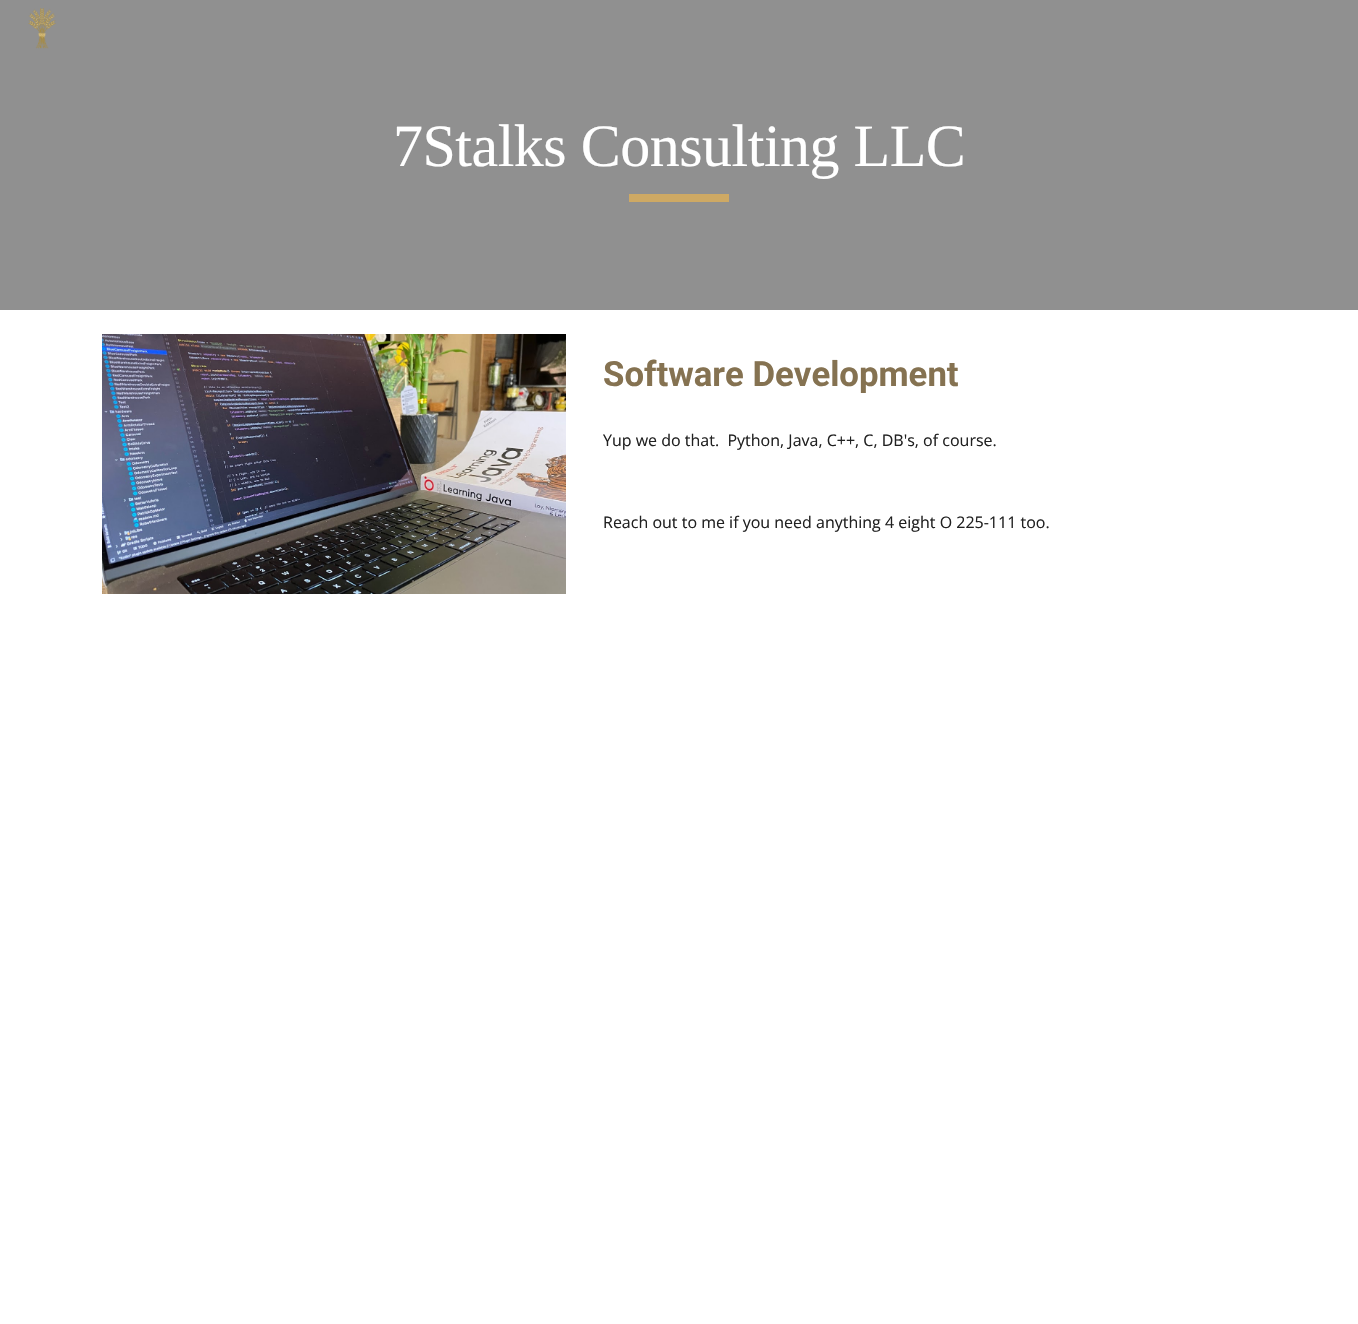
void draw(SkCanvas* canvas) {
  SkPaint paint;
  paint.setAntiAlias(true);
  auto face = [&](const char* family, int weight, float size, bool italic = false) {
    SkFontStyle style(weight, SkFontStyle::kNormal_Width,
      italic ? SkFontStyle::kItalic_Slant : SkFontStyle::kUpright_Slant);
    SkFont result(fontMgr->matchFamilyStyle(family, style), size);
    result.setSubpixel(true);
    return result;
  };
  auto writeSpaced = [&](const char* s, float x, float y, const SkFont& font, const SkPaint& ink, float letter, float word) {
    std::vector<SkGlyphID> glyphs(font.countText(s, strlen(s), SkTextEncoding::kUTF8));
    std::vector<float> xs(glyphs.size());
    font.textToGlyphs(s, strlen(s), SkTextEncoding::kUTF8, glyphs);
    font.getXPos(glyphs, xs, x);
    float extra = 0;
    for (size_t i = 0; i < glyphs.size(); i++) {
      xs[i] += extra;
      extra += letter + word * (glyphs[i] == font.unicharToGlyph(' '));
    }
    canvas->drawTextBlob(SkTextBlob::MakeFromPosHGlyphs(glyphs, xs, y, font), 0, 0, ink);
  };
  auto paste = [&](const char* path, float x, float y, float w, float h) {
    auto image = SkImages::DeferredFromEncodedData(SkData::MakeFromFileName(path));
    canvas->drawImageRect(image, SkRect::MakeXYWH(x, y, w, h), SkSamplingOptions());
  };
  canvas->clear(0xffffffff);
  paint.setColor(0xff909090);
  canvas->drawRect(SkRect::MakeXYWH(0, 0, 1358, 310), paint);
  paste("img/1.png", 28, 8, 28, 41);
  paint.setColor(0xffcea964);
  canvas->drawRect(SkRect::MakeXYWH(629, 194, 100, 8), paint);
  paste("img/2.png", 102, 334, 464, 260);
  auto f0 = face("Liberation Serif", 400, 60);
  paint.setColor(0xffffffff);
  writeSpaced("7Stalks Consulting LLC", 393, 166, f0, paint, -0.5f, 0);
  auto f1 = face("Roboto", 700, 34.75f);
  paint.setColor(0xff857251);
  canvas->drawString("Software Development", 603, 386, f1, paint);
  auto f2 = face("Open Sans", 400, 16);
  paint.setColor(0xff212121);
  canvas->drawString("Yup we do that.  Python, Java, C++, C, DB's, of course.", 603, 446, f2, paint);
  canvas->drawString("Reach out to me if you need anything 4 eight O 225-111 too.", 603, 528, f2, paint);
}
